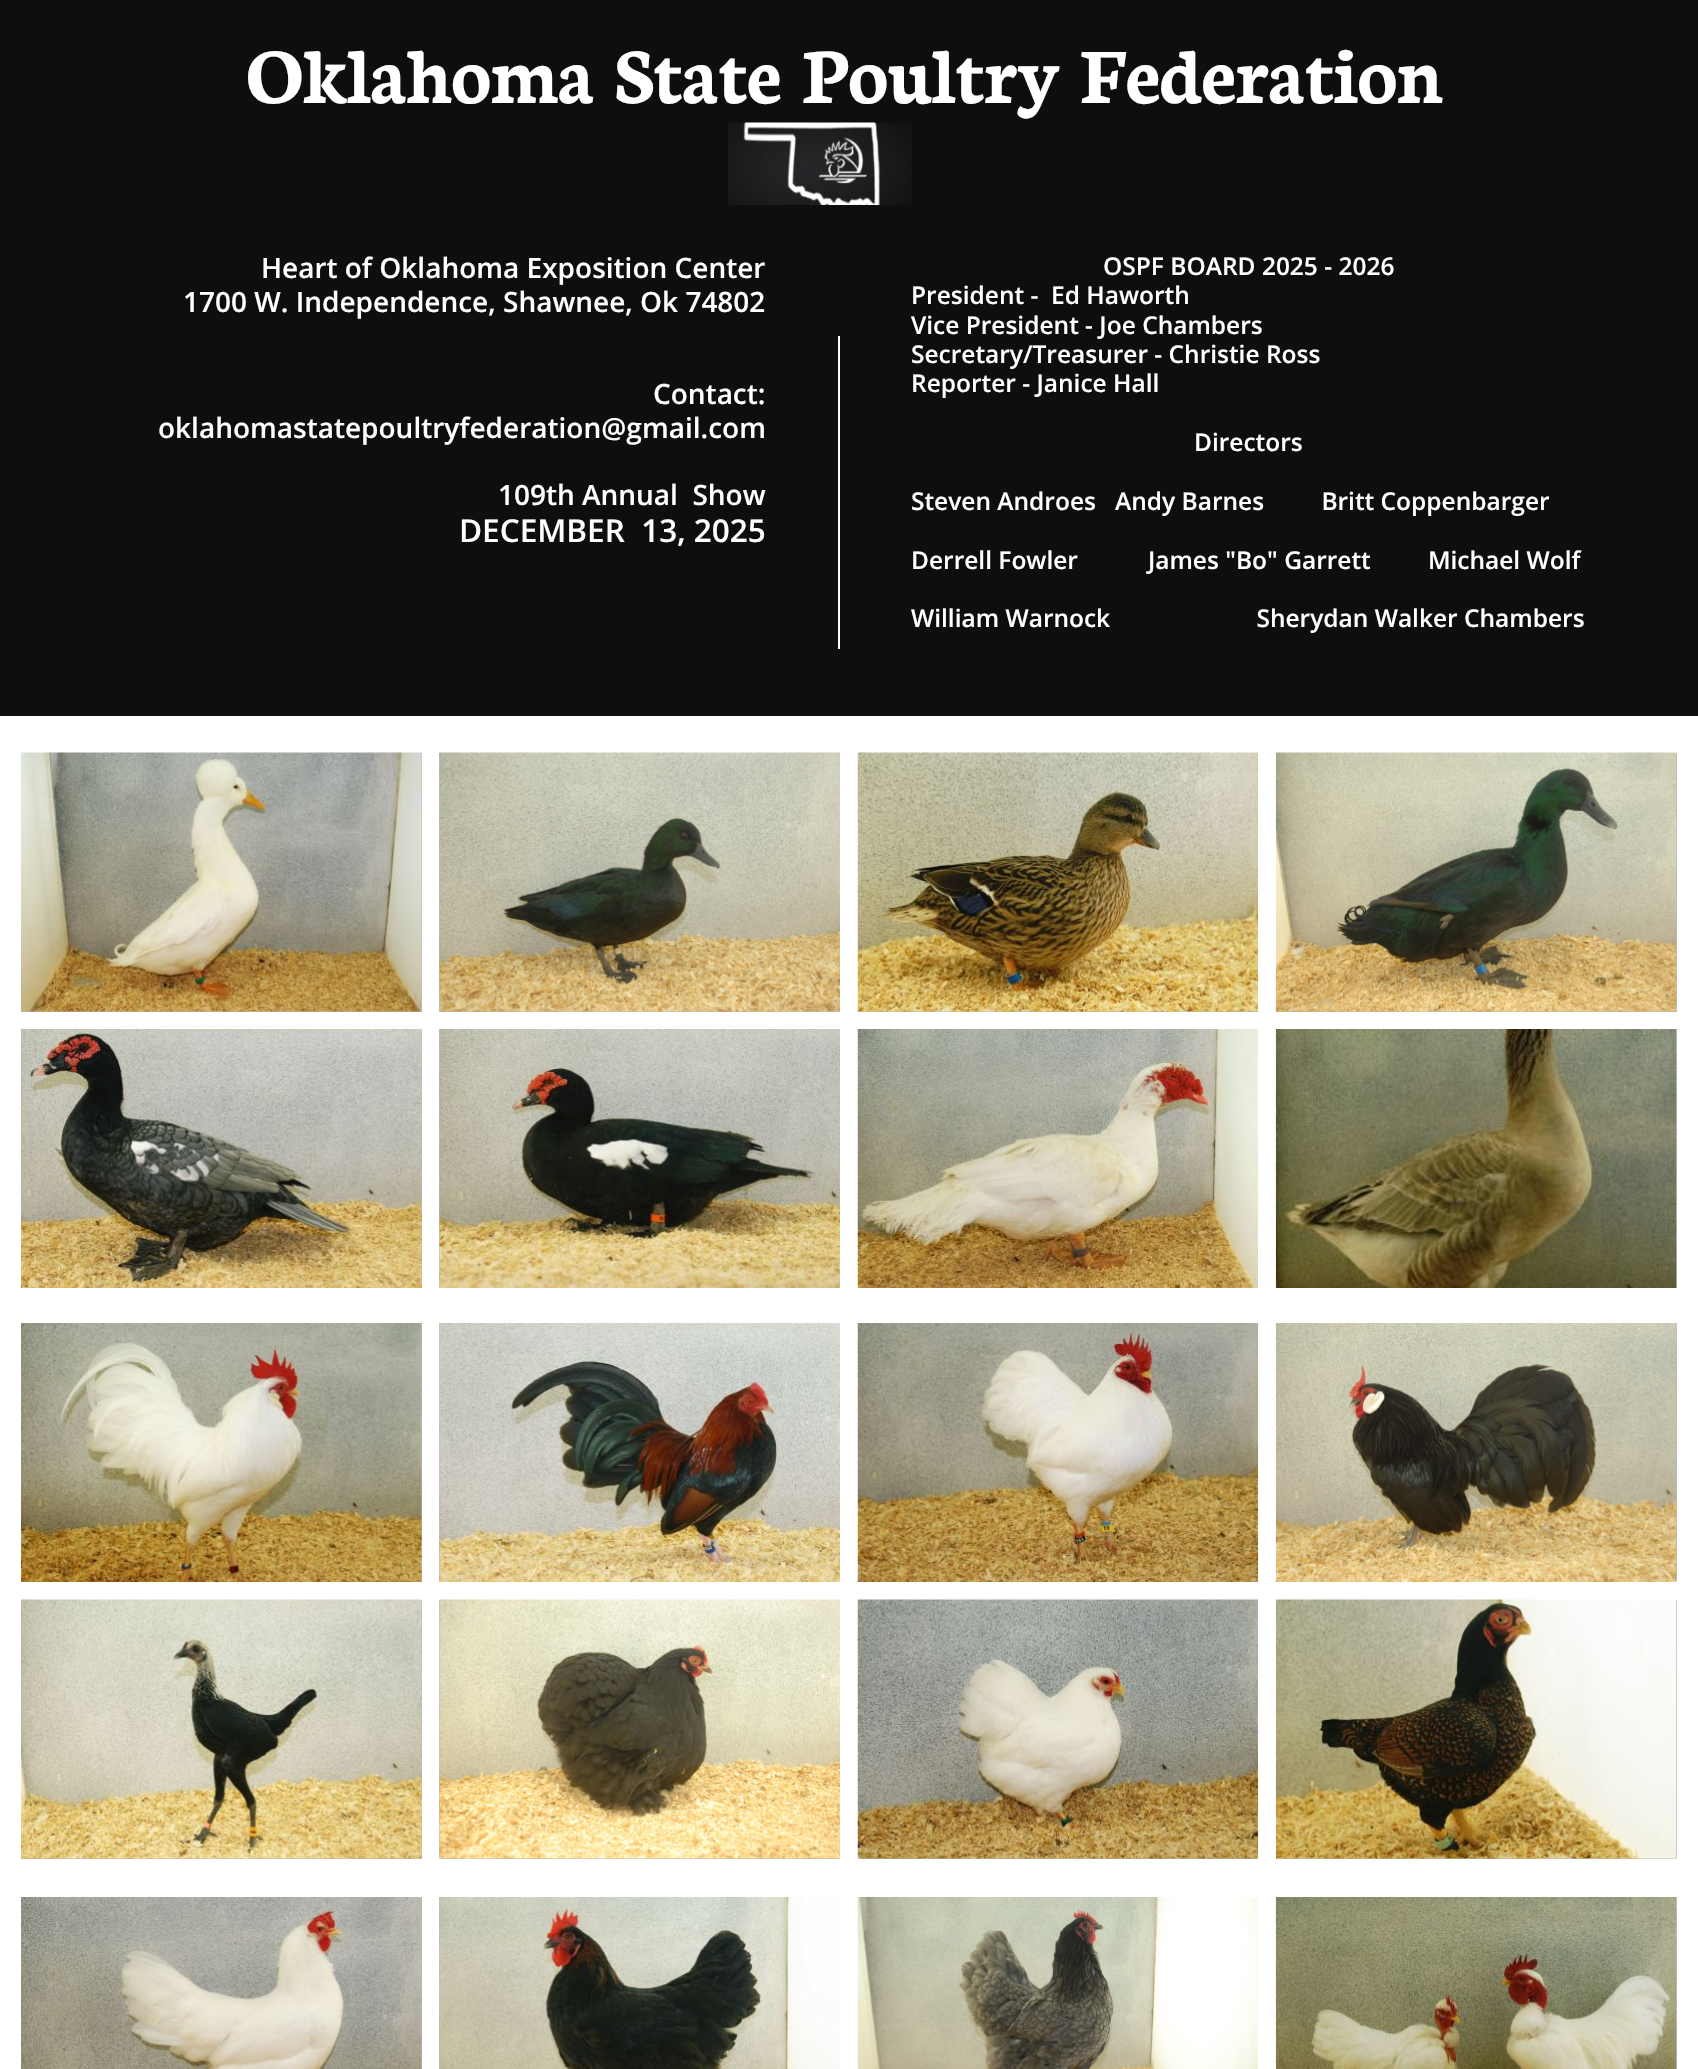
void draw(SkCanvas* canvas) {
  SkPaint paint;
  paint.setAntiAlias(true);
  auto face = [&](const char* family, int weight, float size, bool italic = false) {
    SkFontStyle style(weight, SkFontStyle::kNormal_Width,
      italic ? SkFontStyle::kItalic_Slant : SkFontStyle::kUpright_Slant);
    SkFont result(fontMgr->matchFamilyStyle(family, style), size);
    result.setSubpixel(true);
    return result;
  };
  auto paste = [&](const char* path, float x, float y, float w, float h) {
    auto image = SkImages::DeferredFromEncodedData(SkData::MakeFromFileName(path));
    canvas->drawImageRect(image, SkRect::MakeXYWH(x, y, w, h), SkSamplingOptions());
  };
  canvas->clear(0xffffffff);
  paint.setColor(0xff0e0e0e);
  canvas->drawRect(SkRect::MakeXYWH(0, 0, 1698, 716), paint);
  paste("img/1.png", 728, 122, 184, 83);
  paint.setColor(0xffffffff);
  canvas->drawRect(SkRect::MakeXYWH(838, 336, 2, 313), paint);
  paint.setColor(0xffbdbdbd);
  canvas->drawRect(SkRect::MakeXYWH(21, 753, 401, 259), paint);
  paste("img/2.png", 21, 752, 401, 260);
  canvas->drawRect(SkRect::MakeXYWH(439, 753, 401, 259), paint);
  paste("img/3.png", 439, 752, 401, 260);
  canvas->drawRect(SkRect::MakeXYWH(858, 1011, 400, 1), paint);
  paste("img/4.png", 857, 752, 402, 260);
  canvas->drawRect(SkRect::MakeXYWH(1276, 753, 401, 259), paint);
  paste("img/5.png", 1275, 752, 402, 260);
  canvas->drawRect(SkRect::MakeXYWH(421, 1029, 1, 259), paint);
  paste("img/6.png", 21, 1029, 401, 259);
  canvas->drawRect(SkRect::MakeXYWH(439, 1029, 1, 259), paint);
  paste("img/7.png", 439, 1029, 401, 259);
  paste("img/8.png", 857, 1029, 402, 259);
  canvas->drawRect(SkRect::MakeXYWH(1676, 1029, 1, 259), paint);
  paste("img/9.png", 1275, 1029, 402, 259);
  canvas->drawRect(SkRect::MakeXYWH(421, 1323, 1, 259), paint);
  paste("img/10.png", 21, 1323, 401, 259);
  canvas->drawRect(SkRect::MakeXYWH(439, 1323, 1, 259), paint);
  paste("img/11.png", 439, 1323, 401, 259);
  paste("img/12.png", 857, 1323, 402, 259);
  canvas->drawRect(SkRect::MakeXYWH(1676, 1323, 1, 259), paint);
  paste("img/13.png", 1275, 1323, 402, 259);
  canvas->drawRect(SkRect::MakeXYWH(21, 1600, 401, 259), paint);
  paste("img/14.png", 21, 1599, 401, 260);
  canvas->drawRect(SkRect::MakeXYWH(439, 1600, 401, 259), paint);
  paste("img/15.png", 439, 1599, 401, 260);
  canvas->drawRect(SkRect::MakeXYWH(858, 1858, 400, 1), paint);
  paste("img/16.png", 857, 1599, 402, 260);
  canvas->drawRect(SkRect::MakeXYWH(1276, 1600, 401, 259), paint);
  paste("img/17.png", 1275, 1599, 402, 260);
  canvas->drawRect(SkRect::MakeXYWH(421, 1897, 1, 172), paint);
  paste("img/18.png", 21, 1897, 401, 172);
  canvas->drawRect(SkRect::MakeXYWH(439, 1897, 1, 172), paint);
  paste("img/19.png", 439, 1897, 401, 172);
  paste("img/20.png", 857, 1897, 401, 172);
  canvas->drawRect(SkRect::MakeXYWH(1676, 1897, 1, 172), paint);
  paste("img/21.png", 1275, 1897, 402, 172);
  auto f0 = face("Neuton", 700, 84);
  paint.setColor(0xffffffff);
  canvas->drawString("Oklahoma State Poultry Federation", 246, 103, f0, paint);
  auto f1 = face("Open Sans", 600, 28);
  {
    const struct { const char* s; float x, y; } items[] = {
      {"Heart of Oklahoma Exposition Center", 261, 278},
      {"1700 W. Independence, Shawnee, Ok 74802", 183, 312},
      {"Contact:", 653, 404},
      {"oklahomastatepoultryfederation@gmail.com", 158, 438},
      {"109th Annual  Show", 498, 505},
    };
    for (auto [s, x, y] : items) {
      canvas->drawString(s, x, y, f1, paint);
    }
  }
  auto f2 = face("Open Sans", 600, 31.5f);
  canvas->drawString("DECEMBER  13, 2025", 459, 542, f2, paint);
  auto f3 = face("Open Sans", 600, 24.5f);
  {
    const struct { const char* s; float x, y; } items[] = {
      {"OSPF BOARD 2025 - 2026", 1103, 275},
      {"President -  Ed Haworth", 911, 304},
      {"Vice President - Joe Chambers", 911, 334},
      {"Secretary/Treasurer - Christie Ross", 911, 363},
      {"Reporter - Janice Hall", 911, 392},
      {"Directors", 1194, 451},
      {"Steven Androes   Andy Barnes         Britt Coppenbarger", 911, 510},
      {"Derrell Fowler           James \"Bo\" Garrett         Michael Wolf", 911, 569},
      {"William Warnock                       Sherydan Walker Chambers", 911, 627},
    };
    for (auto [s, x, y] : items) {
      canvas->drawString(s, x, y, f3, paint);
    }
  }
}
